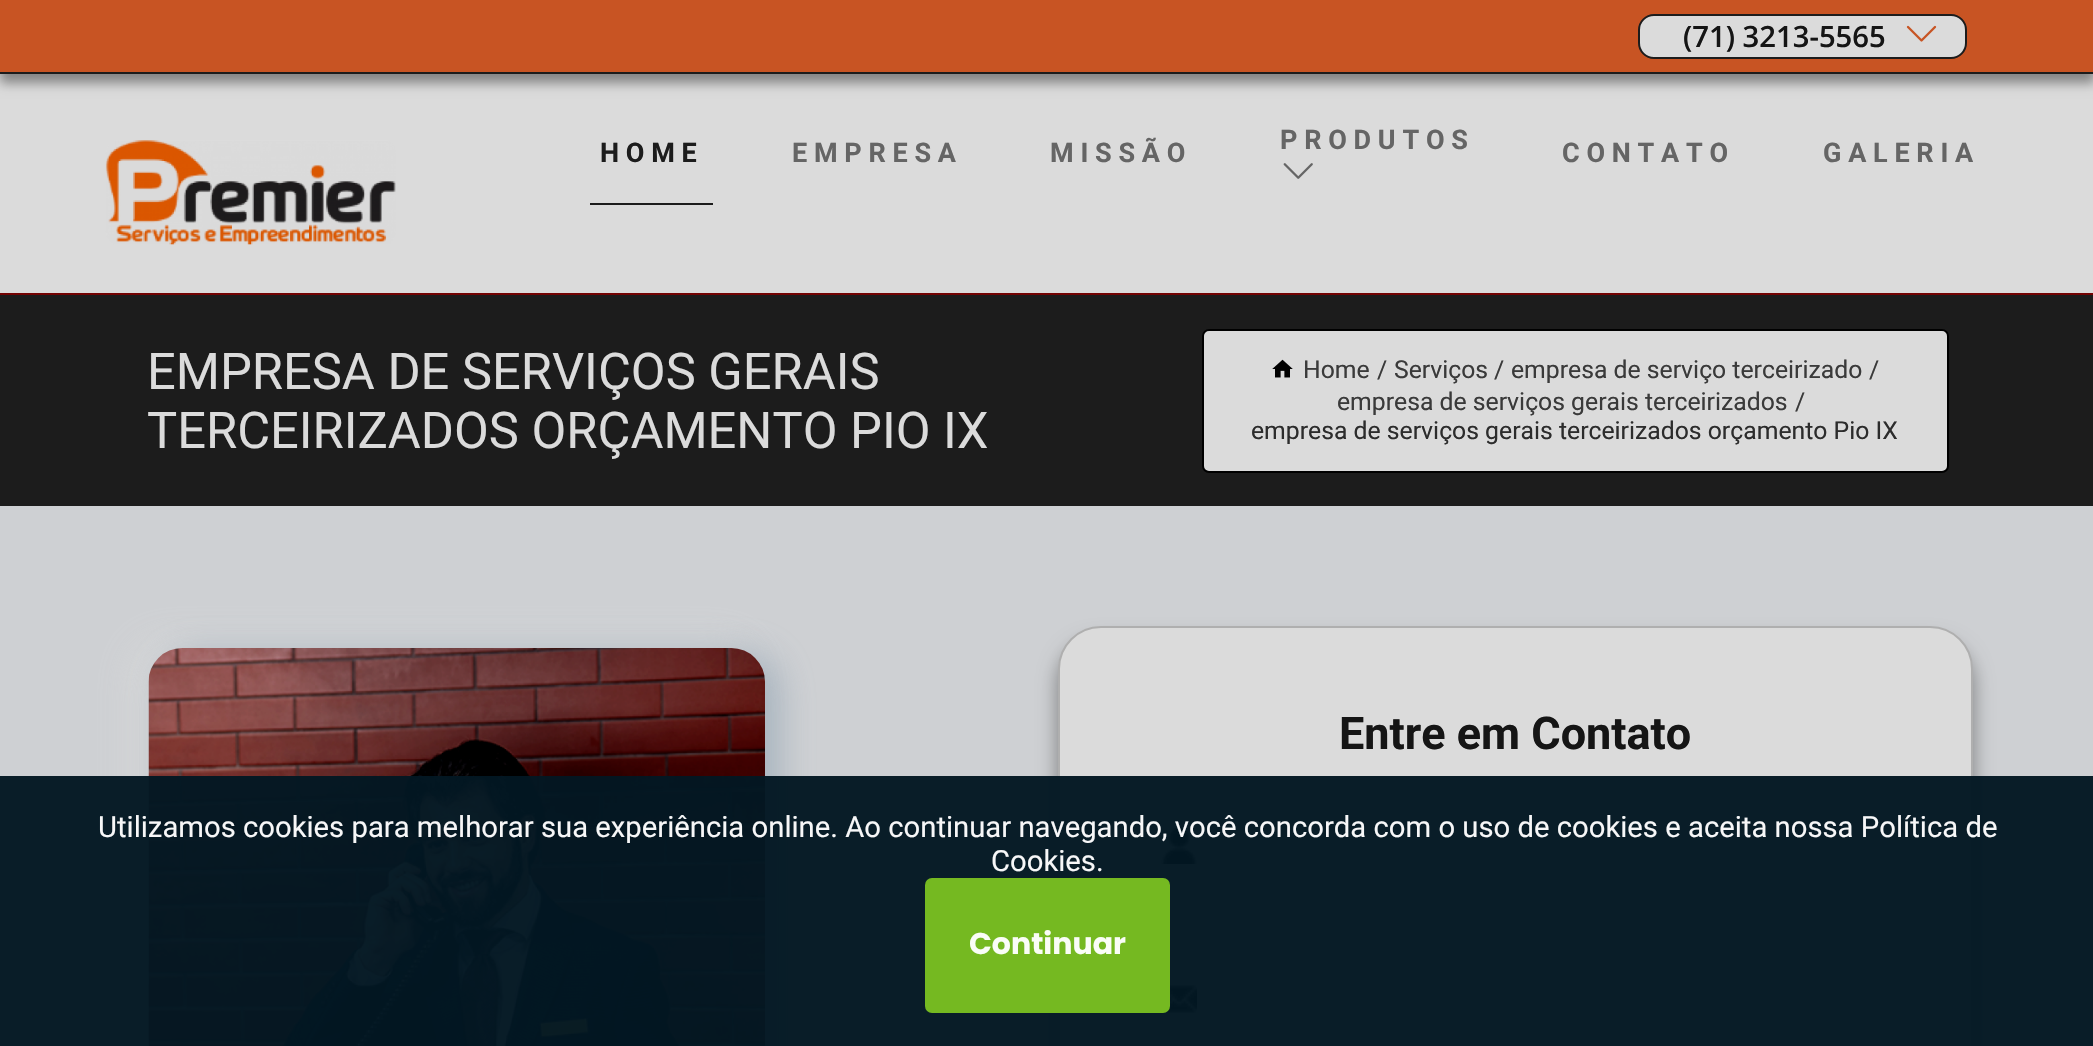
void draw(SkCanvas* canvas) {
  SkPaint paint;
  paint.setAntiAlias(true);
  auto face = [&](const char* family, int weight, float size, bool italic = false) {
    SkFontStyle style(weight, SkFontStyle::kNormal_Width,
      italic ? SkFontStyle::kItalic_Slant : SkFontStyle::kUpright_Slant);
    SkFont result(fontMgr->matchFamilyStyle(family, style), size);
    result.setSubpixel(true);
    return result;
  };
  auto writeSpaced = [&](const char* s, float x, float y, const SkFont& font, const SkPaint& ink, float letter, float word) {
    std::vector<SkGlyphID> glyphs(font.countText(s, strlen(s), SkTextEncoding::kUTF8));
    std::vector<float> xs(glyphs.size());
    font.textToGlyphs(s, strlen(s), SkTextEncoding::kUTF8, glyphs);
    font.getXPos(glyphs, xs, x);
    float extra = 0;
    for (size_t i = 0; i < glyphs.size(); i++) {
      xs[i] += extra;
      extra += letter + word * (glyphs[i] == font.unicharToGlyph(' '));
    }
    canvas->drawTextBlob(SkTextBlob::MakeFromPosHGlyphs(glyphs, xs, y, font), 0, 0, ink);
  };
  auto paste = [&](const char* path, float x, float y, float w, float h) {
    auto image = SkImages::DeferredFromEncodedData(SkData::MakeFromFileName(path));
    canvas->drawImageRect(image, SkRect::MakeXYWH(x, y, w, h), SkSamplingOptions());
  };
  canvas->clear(0xffced0d3);
  paint.setColor(0xffdbdbdb);
  canvas->drawRect(SkRect::MakeXYWH(0, 74, 2093, 219), paint);
  paint.setColor(0x66000000);
  paint.setMaskFilter(SkMaskFilter::MakeBlur(kNormal_SkBlurStyle, 5.5f));
  canvas->drawRect(SkRect::MakeXYWH(0, 9, 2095, 74), paint);
  paint.setMaskFilter(nullptr);
  paint.setColor(0xffc85423);
  canvas->drawRect(SkRect::MakeXYWH(0, 0, 2093, 72), paint);
  paint.setColor(0xff1c1c1c);
  canvas->drawRect(SkRect::MakeXYWH(0, 72, 2093, 2), paint);
  paint.setColor(0xffdbdbdb);
  canvas->drawRoundRect(SkRect::MakeXYWH(1639, 15, 327, 43), 15, 15, paint);
  paint.setStroke(true);
  paint.setStrokeWidth(2);
  paint.setColor(0xff1c1c1c);
  canvas->drawRoundRect(SkRect::MakeXYWH(1639, 15, 327, 43), 15, 15, paint);
  paste("img/1.png", 1906, 25, 31, 17);
  paste("img/2.png", 105, 140, 291, 105);
  paint.setStroke(false);
  canvas->drawRect(SkRect::MakeXYWH(590, 203, 123, 2), paint);
  paste("img/3.png", 1283, 163, 30, 16);
  canvas->drawRect(SkRect::MakeXYWH(0, 295, 2093, 211), paint);
  paint.setColor(0xff720202);
  canvas->drawRect(SkRect::MakeXYWH(0, 293, 2093, 2), paint);
  paint.setColor(0xffdbdbdb);
  canvas->drawRoundRect(SkRect::MakeXYWH(1203, 330, 745, 142), 6, 6, paint);
  paint.setStroke(true);
  paint.setColor(0xff000000);
  canvas->drawRoundRect(SkRect::MakeXYWH(1203, 330, 745, 142), 6, 6, paint);
  paste("img/4.png", 1272, 359, 21, 19);
  paint.setStroke(false);
  paint.setColor(0xccdbdbdb);
  paint.setMaskFilter(SkMaskFilter::MakeBlur(kNormal_SkBlurStyle, 18));
  canvas->drawRoundRect(SkRect::MakeXYWH(135, 644, 617, 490), 34, 34, paint);
  paint.setMaskFilter(nullptr);
  paint.setColor(0x7a758ea4);
  paint.setMaskFilter(SkMaskFilter::MakeBlur(kNormal_SkBlurStyle, 18));
  canvas->drawRoundRect(SkRect::MakeXYWH(162, 653, 617, 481), 34, 34, paint);
  paint.setMaskFilter(nullptr);
  paste("img/5.png", 148, 648, 617, 398);
  paint.setColor(0x66000000);
  paint.setMaskFilter(SkMaskFilter::MakeBlur(kNormal_SkBlurStyle, 10));
  canvas->drawRoundRect(SkRect::MakeXYWH(1058, 641, 915, 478), 43, 43, paint);
  paint.setMaskFilter(nullptr);
  paint.setColor(0xffdbdbdb);
  canvas->drawRoundRect(SkRect::MakeXYWH(1059, 627, 913, 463), 42, 42, paint);
  paint.setStroke(true);
  paint.setColor(0xffafafaf);
  canvas->drawRoundRect(SkRect::MakeXYWH(1059, 627, 913, 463), 42, 42, paint);
  paint.setStroke(false);
  paint.setColor(0xffcecece);
  canvas->drawRoundRect(SkRect::MakeXYWH(1136, 790, 759, 115), 9, 9, paint);
  paste("img/6.png", 1161, 828, 36, 36);
  canvas->drawRoundRect(SkRect::MakeXYWH(1136, 943, 759, 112), 9, 9, paint);
  paste("img/7.png", 1161, 985, 36, 29);
  paint.setColor(0xf7021722);
  canvas->drawRect(SkRect::MakeXYWH(0, 776, 2093, 270), paint);
  paint.setColor(0xf778be20);
  canvas->drawRoundRect(SkRect::MakeXYWH(925, 878, 245, 135), 7, 7, paint);
  auto f0 = face("Open Sans", 600, 29.25f);
  paint.setColor(0xff151515);
  canvas->drawString("(71) 3213-5565", 1683, 47, f0, paint);
  auto f1 = face("Roboto", 700, 27);
  paint.setColor(0xff1c1c1c);
  writeSpaced("HOME", 600, 162, f1, paint, 6.75f, 0);
  paint.setColor(0xff656565);
  {
    const struct { const char* s; float x, y; } items[] = {
      {"EMPRESA", 792, 162},
      {"MISSÃO", 1050, 162},
      {"PRODUTOS", 1280, 149},
      {"CONTATO", 1562, 162},
      {"GALERIA", 1823, 162},
    };
    for (auto [s, x, y] : items) {
      writeSpaced(s, x, y, f1, paint, 6.75f, 0);
    }
  }
  auto f2 = face("Roboto", 400, 50.6f);
  paint.setColor(0xffdbdbdb);
  canvas->drawString("EMPRESA DE SERVIÇOS GERAIS", 147, 389, f2, paint);
  canvas->drawString("TERCEIRIZADOS ORÇAMENTO PIO IX", 147, 448, f2, paint);
  auto f3 = face("Roboto", 400, 24.75f);
  paint.setColor(0xff3a3a3a);
  {
    const struct { const char* s; float x, y; } items[] = {
      {"Home", 1303, 378},
      {"/", 1377, 378},
      {"Serviços", 1394, 378},
      {"/", 1494, 378},
      {"empresa de serviço terceirizado", 1511, 378},
      {"/", 1869, 378},
      {"empresa de serviços gerais terceirizados", 1337, 410},
      {"/", 1795, 410},
    };
    for (auto [s, x, y] : items) {
      canvas->drawString(s, x, y, f3, paint);
    }
  }
  paint.setColor(0xff2c2c2c);
  canvas->drawString("empresa de serviços gerais terceirizados orçamento Pio IX", 1251, 439, f3, paint);
  auto f4 = face("Roboto", 700, 45);
  paint.setColor(0xff151515);
  canvas->drawString("Entre em Contato", 1339, 749, f4, paint);
  auto f5 = face("Roboto", 400, 29.25f);
  paint.setColor(0xfff7f7f8);
  canvas->drawString("Utilizamos cookies para melhorar sua experiência online. Ao continuar navegando, você concorda com o uso de cookies e aceita nossa Política de", 98, 837, f5, paint);
  canvas->drawString("Cookies.", 991, 871, f5, paint);
  auto f6 = face("Poppins", 700, 30);
  paint.setColor(0xfffafdf7);
  canvas->drawString("Continuar", 969, 954, f6, paint);
}
